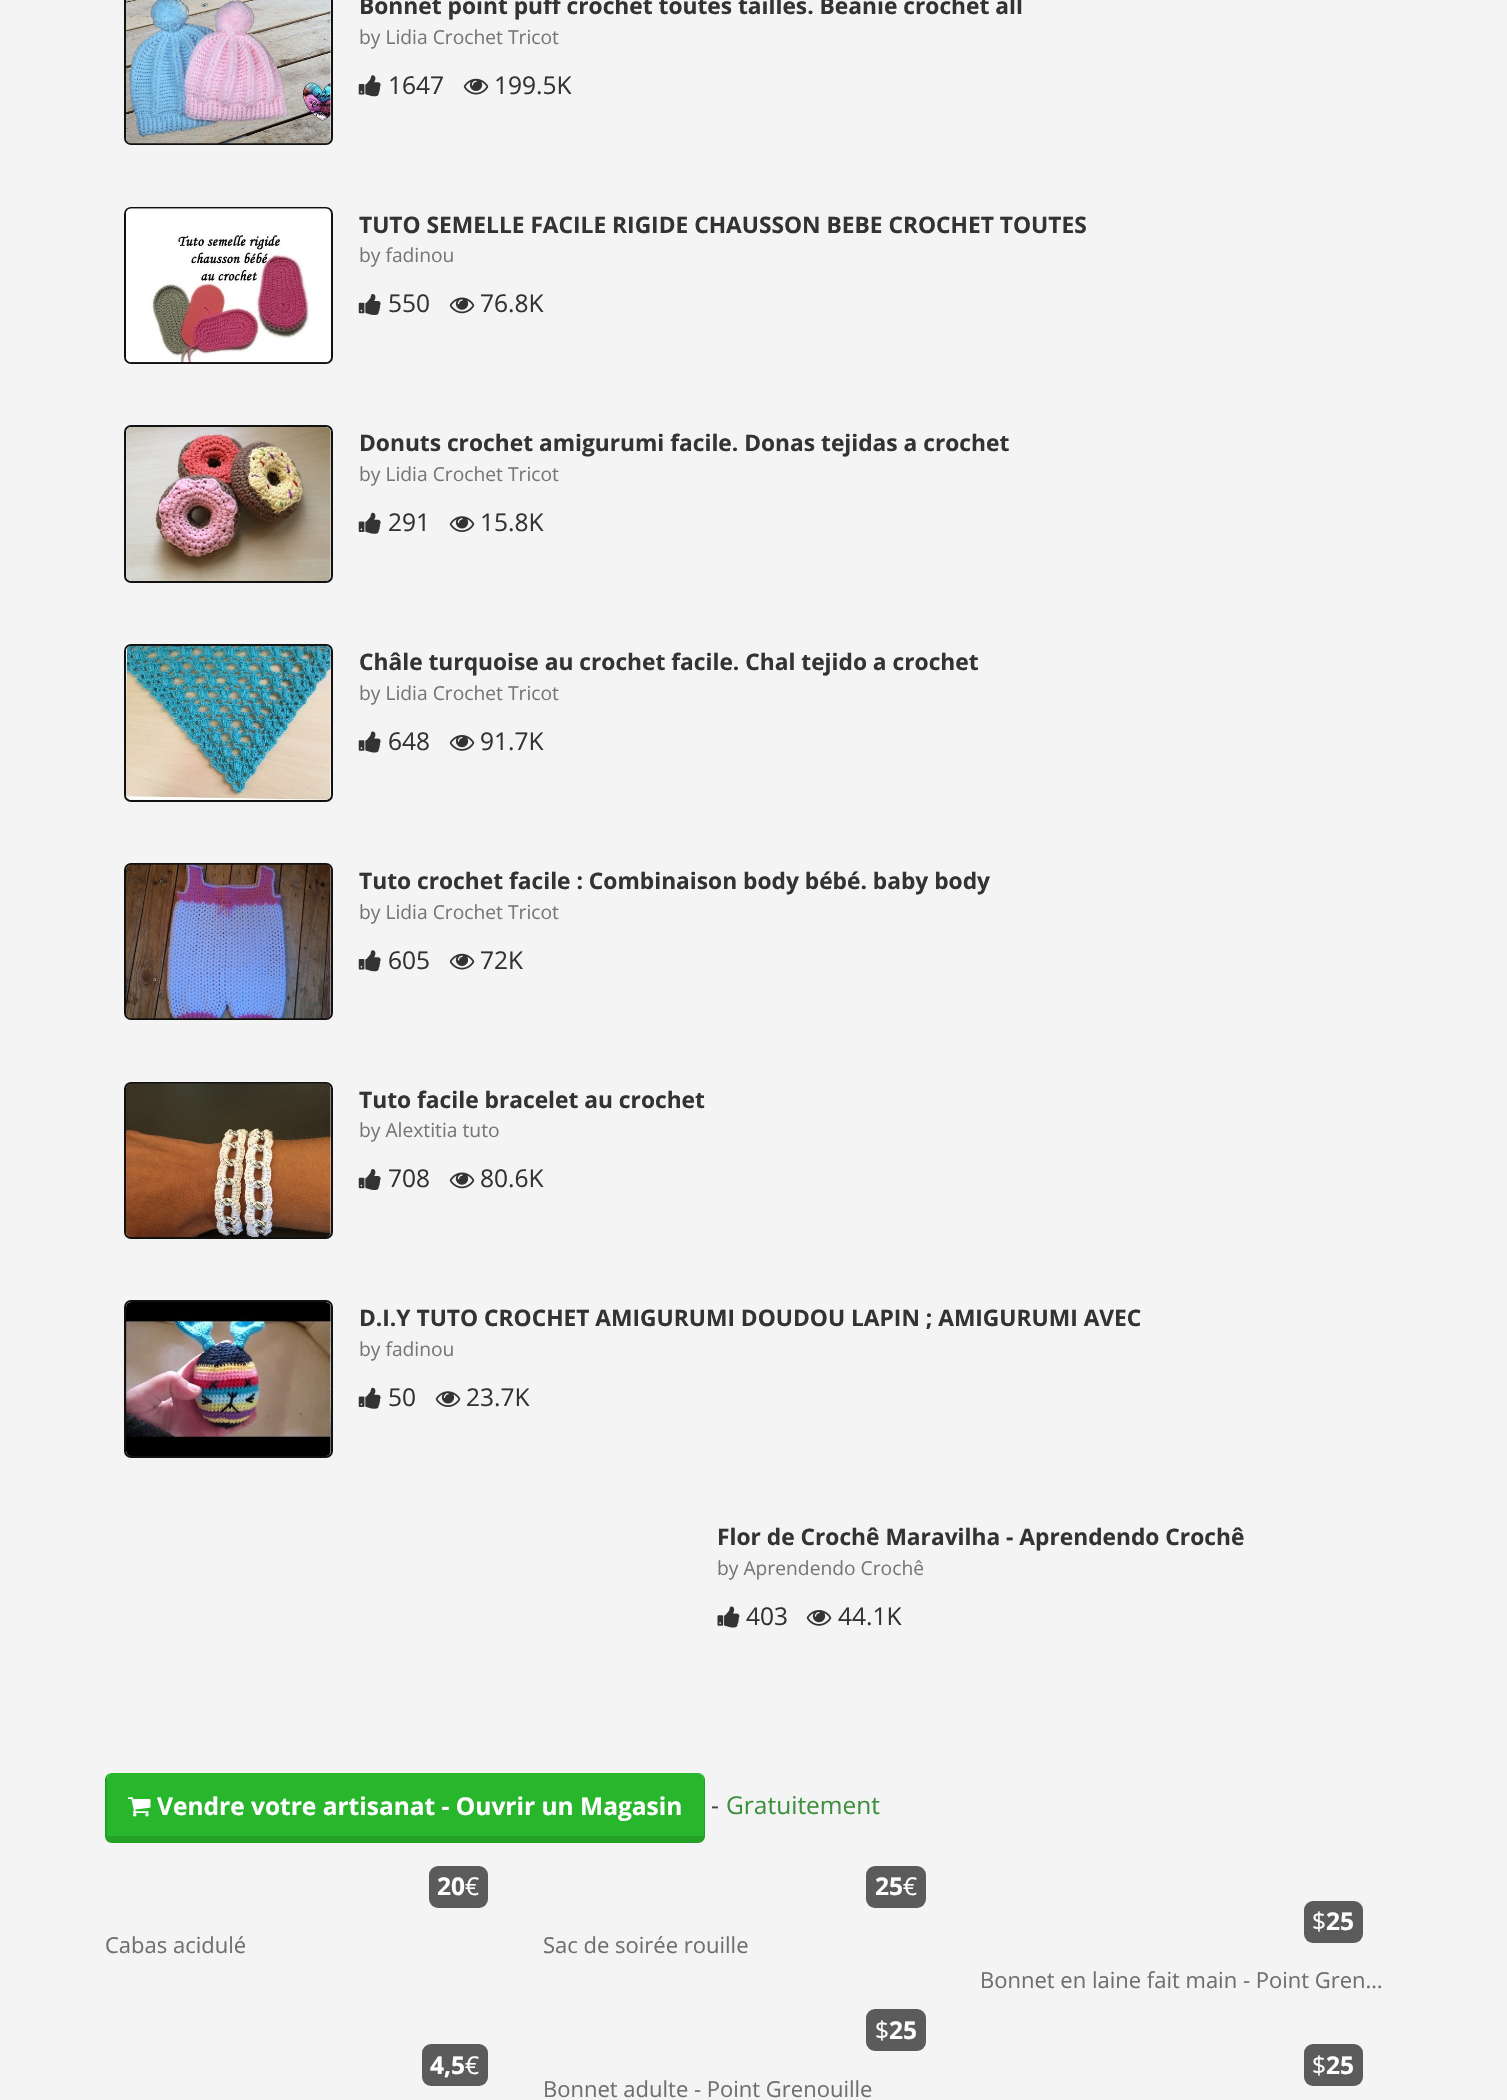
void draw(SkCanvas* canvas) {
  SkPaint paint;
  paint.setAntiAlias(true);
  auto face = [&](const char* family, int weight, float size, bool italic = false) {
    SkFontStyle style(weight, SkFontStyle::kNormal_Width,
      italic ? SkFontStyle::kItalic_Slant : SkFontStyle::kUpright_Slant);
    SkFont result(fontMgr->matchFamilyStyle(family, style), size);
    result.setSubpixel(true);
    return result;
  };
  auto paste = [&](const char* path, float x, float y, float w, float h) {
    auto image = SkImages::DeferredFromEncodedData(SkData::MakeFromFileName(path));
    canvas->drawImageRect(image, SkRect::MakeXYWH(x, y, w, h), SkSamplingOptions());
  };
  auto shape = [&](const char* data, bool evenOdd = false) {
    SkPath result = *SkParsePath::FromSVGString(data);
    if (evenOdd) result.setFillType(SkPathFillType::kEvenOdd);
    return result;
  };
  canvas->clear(0xfff4f4f4);
  paint.setStroke(true);
  paint.setStrokeWidth(2);
  paint.setColor(0xff111111);
  canvas->drawRoundRect(SkRect::MakeXYWH(125, -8, 207, 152), 6, 6, paint);
  paste("img/1.png", 126, 0, 205, 144);
  paste("img/2.png", 358, 75, 23, 22);
  paste("img/3.png", 463, 78, 26, 17);
  canvas->drawRoundRect(SkRect::MakeXYWH(125, 208, 207, 155), 6, 6, paint);
  paste("img/4.png", 126, 208, 205, 155);
  paste("img/5.png", 358, 294, 23, 21);
  paste("img/6.png", 449, 297, 26, 17);
  canvas->drawRoundRect(SkRect::MakeXYWH(125, 426, 207, 156), 6, 6, paint);
  paste("img/7.png", 126, 427, 205, 154);
  paste("img/8.png", 358, 512, 23, 22);
  paste("img/9.png", 449, 516, 26, 16);
  canvas->drawRoundRect(SkRect::MakeXYWH(125, 645, 207, 156), 6, 6, paint);
  paste("img/10.png", 126, 645, 205, 155);
  paste("img/11.png", 358, 731, 23, 22);
  paste("img/12.png", 449, 735, 26, 16);
  canvas->drawRoundRect(SkRect::MakeXYWH(125, 864, 207, 155), 6, 6, paint);
  paste("img/13.png", 126, 864, 205, 155);
  paste("img/2.png", 358, 950, 23, 22);
  paste("img/3.png", 449, 953, 26, 17);
  canvas->drawRoundRect(SkRect::MakeXYWH(125, 1083, 207, 155), 6, 6, paint);
  paste("img/14.png", 126, 1083, 205, 155);
  paste("img/5.png", 358, 1169, 23, 21);
  paste("img/6.png", 449, 1172, 26, 17);
  canvas->drawRoundRect(SkRect::MakeXYWH(125, 1301, 207, 156), 6, 6, paint);
  paste("img/15.png", 126, 1302, 205, 154);
  paste("img/8.png", 358, 1387, 23, 22);
  paste("img/9.png", 435, 1391, 26, 16);
  paste("img/16.png", 717, 1606, 23, 22);
  paste("img/12.png", 806, 1610, 26, 16);
  paint.setStroke(false);
  paint.setColor(0xff28b62c);
  canvas->drawPath(shape("M112 1773H698C701 1773 704 1776 704 1780V1836H107V1780C107 1776 109 1773 112 1773Z"), paint);
  paint.setColor(0xff23a127);
  canvas->drawPath(shape("M112 1773H698C702 1773 705 1776 705 1780V1836C705 1840 702 1843 698 1843H112C108 1843 105 1840 105 1836V1780C105 1776 108 1773 112 1773ZM112 1773H698C701 1773 704 1776 704 1780V1836H107V1780C107 1776 109 1773 112 1773Z", true), paint);
  paste("img/17.png", 127, 1797, 24, 20);
  paint.setColor(0xff5b5b5b);
  canvas->drawRoundRect(SkRect::MakeXYWH(429, 1866, 59, 42), 9, 9, paint);
  canvas->drawRoundRect(SkRect::MakeXYWH(866, 1866, 60, 42), 9, 9, paint);
  canvas->drawRoundRect(SkRect::MakeXYWH(1304, 1901, 59, 42), 9, 9, paint);
  canvas->drawRoundRect(SkRect::MakeXYWH(422, 2044, 66, 42), 9, 9, paint);
  canvas->drawRoundRect(SkRect::MakeXYWH(866, 2009, 60, 42), 9, 9, paint);
  canvas->drawRoundRect(SkRect::MakeXYWH(1304, 2044, 59, 42), 9, 9, paint);
  auto f0 = face("Open Sans", 700, 22.75f);
  paint.setColor(0xff333333);
  canvas->drawString("Bonnet point puff crochet toutes tailles. Beanie crochet all", 359, 14, f0, paint);
  auto f1 = face("Open Sans", 400, 19.25f);
  paint.setColor(0xff777777);
  canvas->drawString("by Lidia Crochet Tricot", 359, 44, f1, paint);
  auto f2 = face("Open Sans", 400, 24.5f);
  paint.setColor(0xff333333);
  canvas->drawString("1647", 388, 94, f2, paint);
  canvas->drawString("199.5K", 494, 94, f2, paint);
  canvas->drawString("TUTO SEMELLE FACILE RIGIDE CHAUSSON BEBE CROCHET TOUTES", 359, 233, f0, paint);
  paint.setColor(0xff777777);
  canvas->drawString("by fadinou", 359, 262, f1, paint);
  paint.setColor(0xff333333);
  canvas->drawString("550", 388, 312, f2, paint);
  canvas->drawString("76.8K", 480, 312, f2, paint);
  canvas->drawString("Donuts crochet amigurumi facile. Donas tejidas a crochet", 359, 451, f0, paint);
  paint.setColor(0xff777777);
  canvas->drawString("by Lidia Crochet Tricot", 359, 481, f1, paint);
  paint.setColor(0xff333333);
  canvas->drawString("291", 388, 531, f2, paint);
  canvas->drawString("15.8K", 480, 531, f2, paint);
  canvas->drawString("Châle turquoise au crochet facile. Chal tejido a crochet", 359, 670, f0, paint);
  paint.setColor(0xff777777);
  canvas->drawString("by Lidia Crochet Tricot", 359, 700, f1, paint);
  paint.setColor(0xff333333);
  canvas->drawString("648", 388, 750, f2, paint);
  canvas->drawString("91.7K", 480, 750, f2, paint);
  canvas->drawString("Tuto crochet facile : Combinaison body bébé. baby body", 359, 889, f0, paint);
  paint.setColor(0xff777777);
  canvas->drawString("by Lidia Crochet Tricot", 359, 919, f1, paint);
  paint.setColor(0xff333333);
  canvas->drawString("605", 388, 969, f2, paint);
  canvas->drawString("72K", 480, 969, f2, paint);
  canvas->drawString("Tuto facile bracelet au crochet", 359, 1108, f0, paint);
  paint.setColor(0xff777777);
  canvas->drawString("by Alextitia tuto", 359, 1137, f1, paint);
  paint.setColor(0xff333333);
  canvas->drawString("708", 388, 1187, f2, paint);
  canvas->drawString("80.6K", 480, 1187, f2, paint);
  canvas->drawString("D.I.Y TUTO CROCHET AMIGURUMI DOUDOU LAPIN ; AMIGURUMI AVEC", 359, 1326, f0, paint);
  paint.setColor(0xff777777);
  canvas->drawString("by fadinou", 359, 1356, f1, paint);
  paint.setColor(0xff333333);
  canvas->drawString("50", 388, 1406, f2, paint);
  canvas->drawString("23.7K", 466, 1406, f2, paint);
  canvas->drawString("Flor de Crochê Maravilha - Aprendendo Crochê", 717, 1545, f0, paint);
  paint.setColor(0xff777777);
  canvas->drawString("by Aprendendo Crochê", 717, 1575, f1, paint);
  paint.setColor(0xff333333);
  canvas->drawString("403", 746, 1625, f2, paint);
  canvas->drawString("44.1K", 838, 1625, f2, paint);
  auto f3 = face("Open Sans", 700, 24.5f);
  paint.setColor(0xffffffff);
  canvas->drawString("Vendre votre artisanat - Ouvrir un Magasin", 157, 1815, f3, paint);
  paint.setColor(0xff444444);
  canvas->drawString("-", 711, 1814, f2, paint);
  paint.setColor(0xff3e8f3e);
  canvas->drawString("Gratuitement", 726, 1814, f2, paint);
  paint.setColor(0xffffffff);
  canvas->drawString("20", 437, 1895, f3, paint);
  canvas->drawString("€", 465, 1895, f2, paint);
  auto f4 = face("Open Sans", 400, 22);
  paint.setColor(0xff6f6f6f);
  canvas->drawString("Cabas acidulé", 105, 1953, f4, paint);
  paint.setColor(0xffffffff);
  canvas->drawString("25", 875, 1895, f3, paint);
  canvas->drawString("€", 903, 1895, f2, paint);
  paint.setColor(0xff6f6f6f);
  canvas->drawString("Sac de soirée rouille", 543, 1953, f4, paint);
  paint.setColor(0xffffffff);
  canvas->drawString("$", 1312, 1930, f2, paint);
  canvas->drawString("25", 1326, 1930, f3, paint);
  paint.setColor(0xff6f6f6f);
  canvas->drawString("Bonnet en laine fait main - Point Gren…", 980, 1988, f4, paint);
  paint.setColor(0xffffffff);
  canvas->drawString("4,5", 430, 2074, f3, paint);
  canvas->drawString("€", 465, 2074, f2, paint);
  canvas->drawString("$", 875, 2039, f2, paint);
  canvas->drawString("25", 889, 2039, f3, paint);
  paint.setColor(0xff6f6f6f);
  canvas->drawString("Bonnet adulte - Point Grenouille", 543, 2097, f4, paint);
  paint.setColor(0xffffffff);
  canvas->drawString("$", 1312, 2074, f2, paint);
  canvas->drawString("25", 1326, 2074, f3, paint);
}
